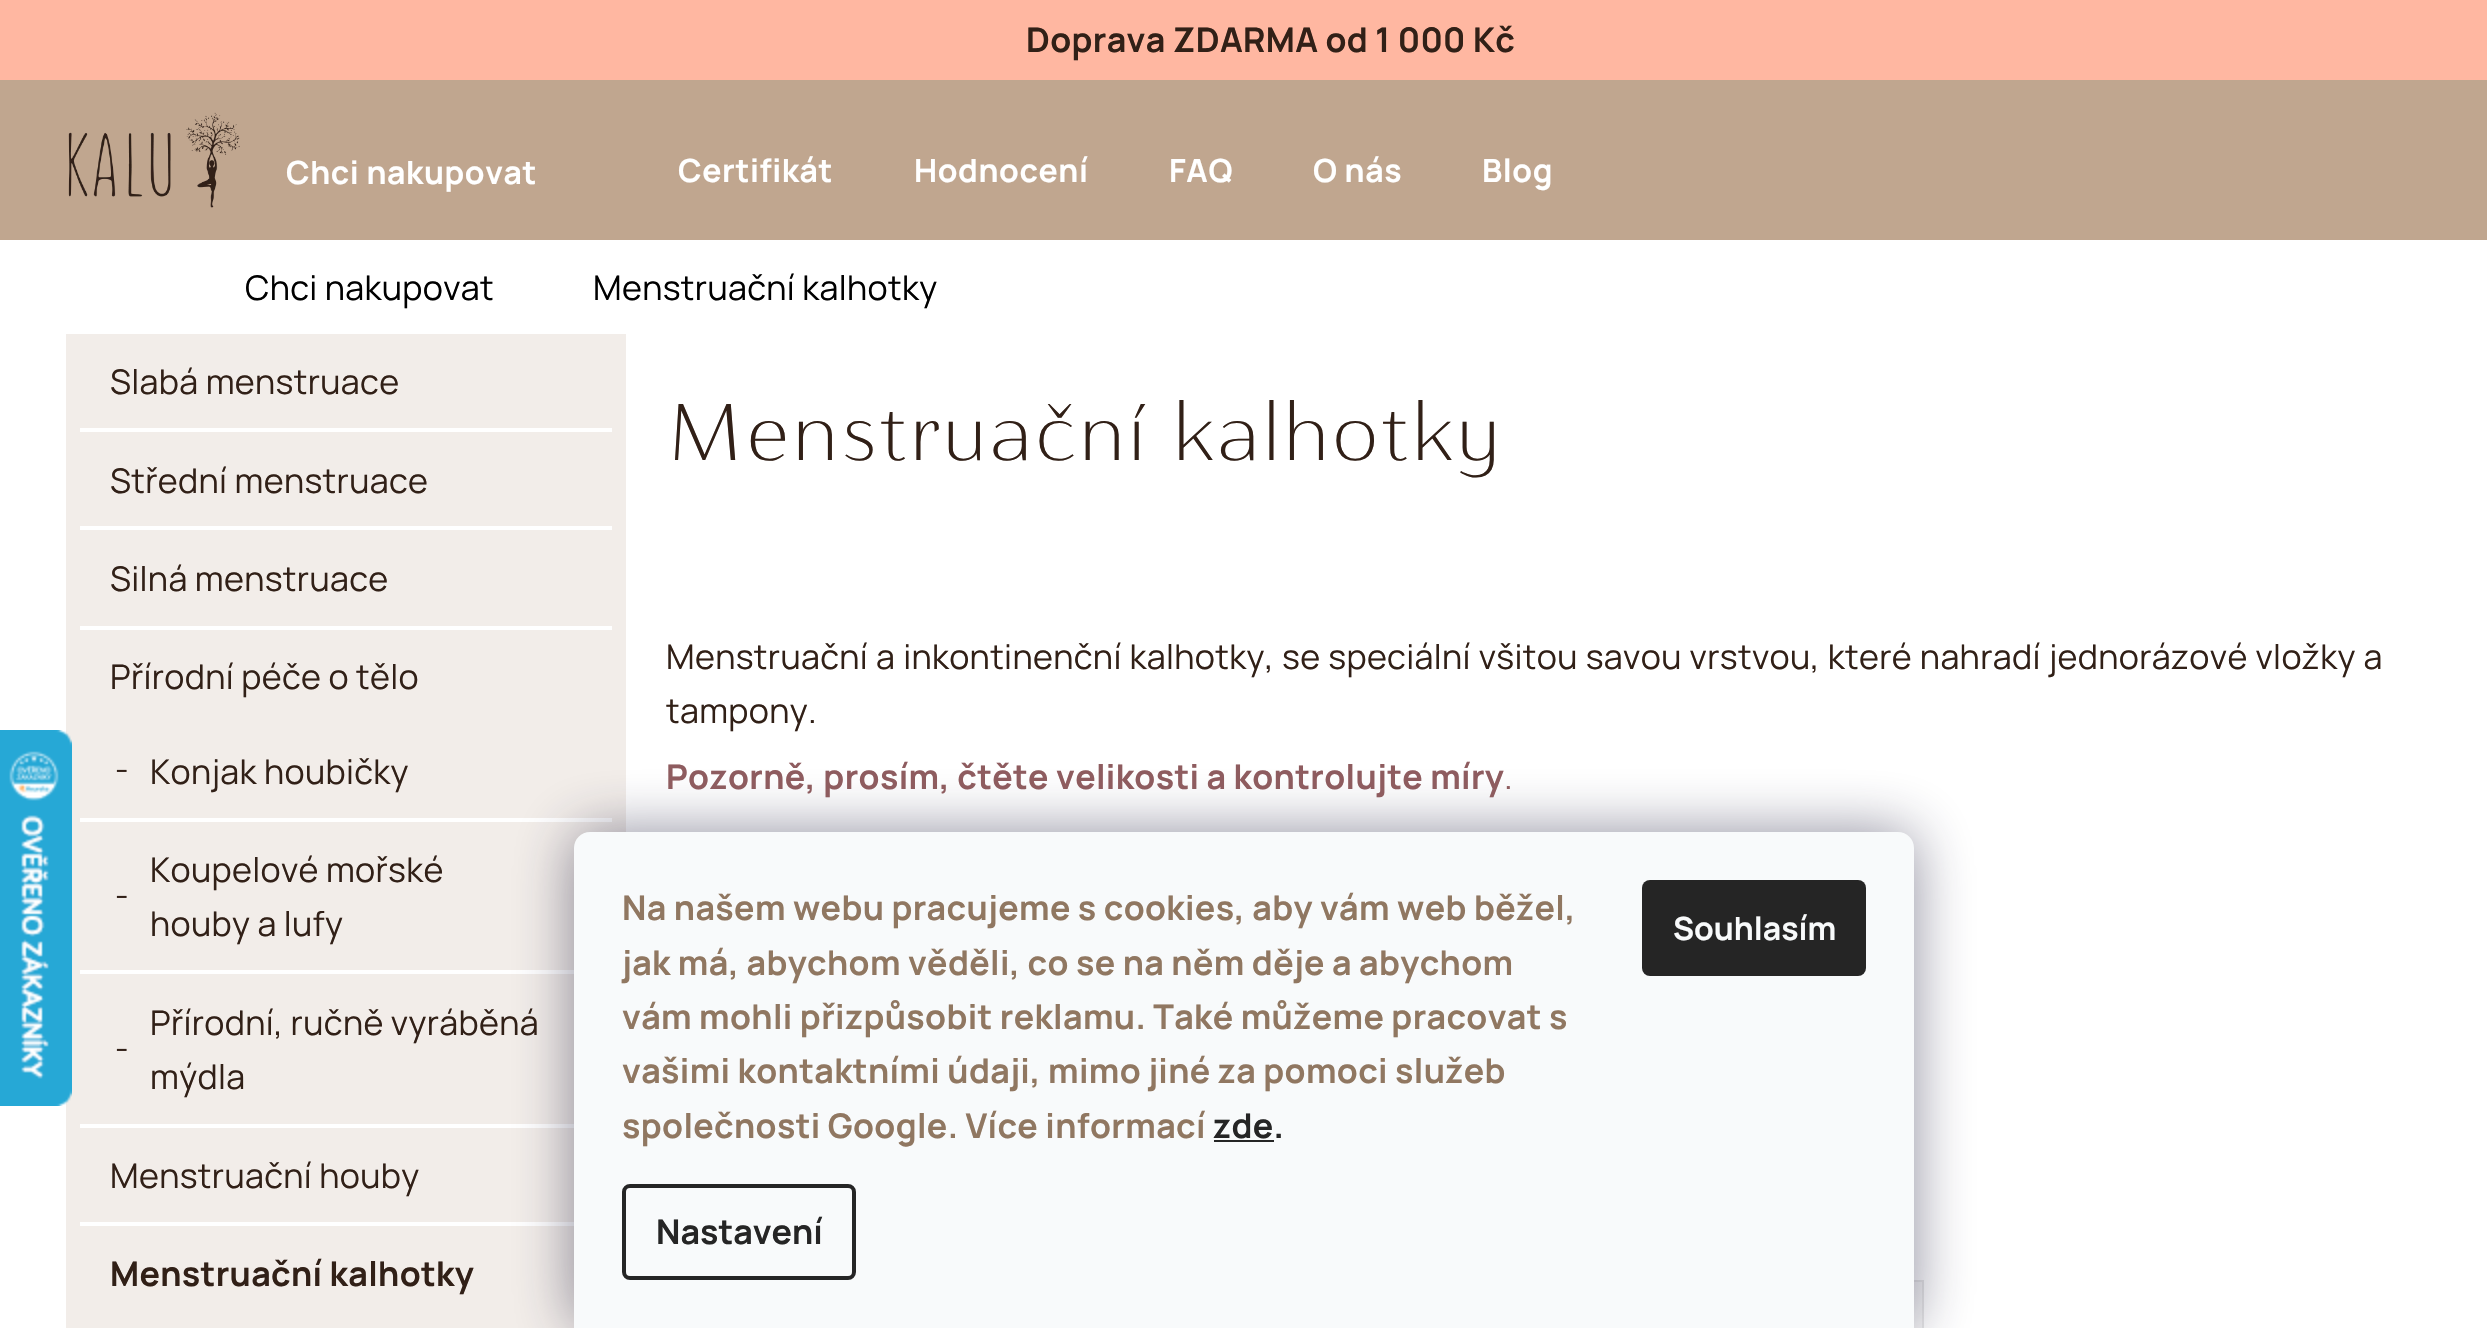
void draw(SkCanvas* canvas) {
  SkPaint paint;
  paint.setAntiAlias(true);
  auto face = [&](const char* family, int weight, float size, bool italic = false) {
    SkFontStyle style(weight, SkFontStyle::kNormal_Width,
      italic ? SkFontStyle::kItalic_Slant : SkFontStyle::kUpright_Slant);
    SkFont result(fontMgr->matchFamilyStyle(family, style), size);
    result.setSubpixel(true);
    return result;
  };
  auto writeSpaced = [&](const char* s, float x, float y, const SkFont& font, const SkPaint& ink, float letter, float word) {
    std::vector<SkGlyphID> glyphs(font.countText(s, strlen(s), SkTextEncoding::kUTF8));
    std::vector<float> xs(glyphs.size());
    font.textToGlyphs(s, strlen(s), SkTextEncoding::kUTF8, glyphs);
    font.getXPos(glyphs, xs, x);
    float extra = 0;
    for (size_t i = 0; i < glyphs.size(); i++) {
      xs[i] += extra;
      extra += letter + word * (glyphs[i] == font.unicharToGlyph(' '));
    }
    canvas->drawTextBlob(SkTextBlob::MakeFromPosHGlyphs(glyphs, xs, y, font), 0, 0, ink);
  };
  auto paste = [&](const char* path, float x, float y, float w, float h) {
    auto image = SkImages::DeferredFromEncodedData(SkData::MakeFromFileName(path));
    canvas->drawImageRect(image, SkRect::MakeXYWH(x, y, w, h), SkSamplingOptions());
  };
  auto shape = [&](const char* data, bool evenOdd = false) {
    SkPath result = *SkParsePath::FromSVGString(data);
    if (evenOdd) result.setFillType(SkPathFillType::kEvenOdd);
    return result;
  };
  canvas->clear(0xffffffff);
  paint.setColor(0xfff2ede9);
  canvas->drawRect(SkRect::MakeXYWH(66, 334, 14, 994), paint);
  paste("img/1.png", 0, 730, 72, 376);
  paint.setColor(0xffffb7a1);
  canvas->drawRect(SkRect::MakeXYWH(0, 0, 2487, 80), paint);
  paint.setColor(0xffc0a68f);
  canvas->drawRect(SkRect::MakeXYWH(0, 80, 2487, 160), paint);
  paste("img/2.png", 68, 112, 172, 96);
  {
    const struct { float x, y, w, h; SkColor color; } items[] = {
      {612, 334, 14, 498, 0xfff2ede9},
      {80, 334, 532, 94, 0xfff2ede9},
      {80, 432, 532, 94, 0xfff2ede9},
      {80, 530, 532, 96, 0xfff2ede9},
      {80, 630, 532, 188, 0xfff2ede9},
      {80, 822, 532, 148, 0xfff2ede9},
      {80, 974, 494, 150, 0xfff2ede9},
      {80, 1128, 494, 94, 0xfff2ede9},
      {80, 1226, 494, 102, 0xfff2ede9},
      {1914, 1282, 8, 46, 0xfff5f5f5},
    };
    for (auto [x, y, w, h, color] : items) {
      paint.setColor(color);
      canvas->drawRect(SkRect::MakeXYWH(x, y, w, h), paint);
    }
  }
  paint.setStroke(true);
  paint.setStrokeWidth(2);
  paint.setColor(0xffe7e7e7);
  canvas->drawRect(SkRect::MakeXYWH(1717, 1281, 206, 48), paint);
  paint.setStroke(false);
  paint.setColor(0x801b1939);
  paint.setMaskFilter(SkMaskFilter::MakeBlur(kNormal_SkBlurStyle, 30));
  canvas->drawRoundRect(SkRect::MakeXYWH(574, 832, 1340, 496), 16, 16, paint);
  paint.setMaskFilter(nullptr);
  paint.setColor(0xfff8fafb);
  canvas->drawPath(shape("M590 832H1898C1907 832 1914 839 1914 848V1328H574V848C574 839 581 832 590 832Z"), paint);
  paint.setColor(0xff252525);
  canvas->drawRect(SkRect::MakeXYWH(1214, 1140, 60, 2), paint);
  paint.setStroke(true);
  paint.setStrokeWidth(4);
  canvas->drawRoundRect(SkRect::MakeXYWH(624, 1186, 230, 92), 6, 6, paint);
  paint.setStroke(false);
  canvas->drawRoundRect(SkRect::MakeXYWH(1642, 880, 224, 96), 8, 8, paint);
  auto f0 = face("Manrope", 700, 34);
  paint.setColor(0xff312017);
  writeSpaced("Doprava ZDARMA od 1 000 Kč", 1026, 52, f0, paint, 0.34f, 0);
  auto f1 = face("Manrope", 700, 32);
  paint.setColor(0xffffffff);
  {
    const struct { const char* s; float x, y; } items[] = {
      {"Chci nakupovat", 286, 184},
      {"Certifikát", 678, 182},
      {"Hodnocení", 914, 182},
      {"FAQ", 1169, 182},
      {"O nás", 1313, 182},
      {"Blog", 1482, 182},
    };
    for (auto [s, x, y] : items) {
      writeSpaced(s, x, y, f1, paint, 0.6f, 0);
    }
  }
  auto f2 = face("Manrope", 400, 34);
  paint.setColor(0xff000000);
  writeSpaced("Chci nakupovat", 245, 300, f2, paint, 0.34f, 0);
  writeSpaced("Menstruační kalhotky", 593, 300, f2, paint, 0.34f, 0);
  paint.setColor(0xff312017);
  {
    const struct { const char* s; float x, y; } items[] = {
      {"Slabá menstruace", 110, 394},
      {"Střední menstruace", 110, 493},
      {"Silná menstruace", 110, 591},
      {"Přírodní péče o tělo", 110, 689},
    };
    for (auto [s, x, y] : items) {
      writeSpaced(s, x, y, f2, paint, 0.34f, 0);
    }
  }
  auto f3 = face("Manrope", 400, 32);
  writeSpaced("-", 115, 781, f3, paint, 0.34f, 0);
  writeSpaced("Konjak houbičky", 150, 784, f2, paint, 0.34f, 0);
  writeSpaced("Koupelové mořské", 150, 882, f2, paint, 0.34f, 0);
  writeSpaced("-", 115, 907, f3, paint, 0.34f, 0);
  writeSpaced("houby a lufy", 150, 936, f2, paint, 0.34f, 0);
  writeSpaced("Přírodní, ručně vyráběná", 150, 1035, f2, paint, 0.34f, 0);
  writeSpaced("-", 115, 1060, f3, paint, 0.34f, 0);
  writeSpaced("mýdla", 150, 1089, f2, paint, 0.34f, 0);
  writeSpaced("Menstruační houby", 110, 1188, f2, paint, 0.34f, 0);
  writeSpaced("Menstruační kalhotky", 110, 1286, f0, paint, 0.34f, 0);
  auto f4 = face("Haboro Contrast", 200, 80);
  writeSpaced("Menstruační kalhotky", 666, 460, f4, paint, 1.6f, 0);
  writeSpaced("Menstruační a inkontinenční kalhotky, se speciální všitou savou vrstvou, které nahradí jednorázové vložky a", 666, 669, f2, paint, 0.34f, 0.75f);
  writeSpaced("tampony.", 666, 723, f2, paint, 0.34f, 0);
  paint.setColor(0xff8e5c5f);
  writeSpaced("Pozorně, prosím, čtěte velikosti a kontrolujte míry", 666, 789, f0, paint, 0.34f, 0);
  writeSpaced(".", 1504, 789, f2, paint, 0.34f, 0);
  paint.setColor(0xff907761);
  {
    const struct { const char* s; float x, y; } items[] = {
      {"Na našem webu pracujeme s cookies, aby vám web běžel,", 622, 920},
      {"jak má, abychom věděli, co se na něm děje a abychom", 622, 975},
      {"vám mohli přizpůsobit reklamu. Také můžeme pracovat s", 622, 1029},
      {"vašimi kontaktními údaji, mimo jiné za pomoci služeb", 622, 1083},
      {"společnosti Google. Více informací", 622, 1138},
    };
    for (auto [s, x, y] : items) {
      writeSpaced(s, x, y, f0, paint, 0.34f, 0);
    }
  }
  paint.setColor(0xff252525);
  writeSpaced("zde.", 1213, 1138, f0, paint, 0.34f, 0);
  canvas->drawString("Nastavení", 656, 1244, f0, paint);
  paint.setColor(0xfff8fafb);
  canvas->drawString("Souhlasím", 1673, 940, f1, paint);
}
